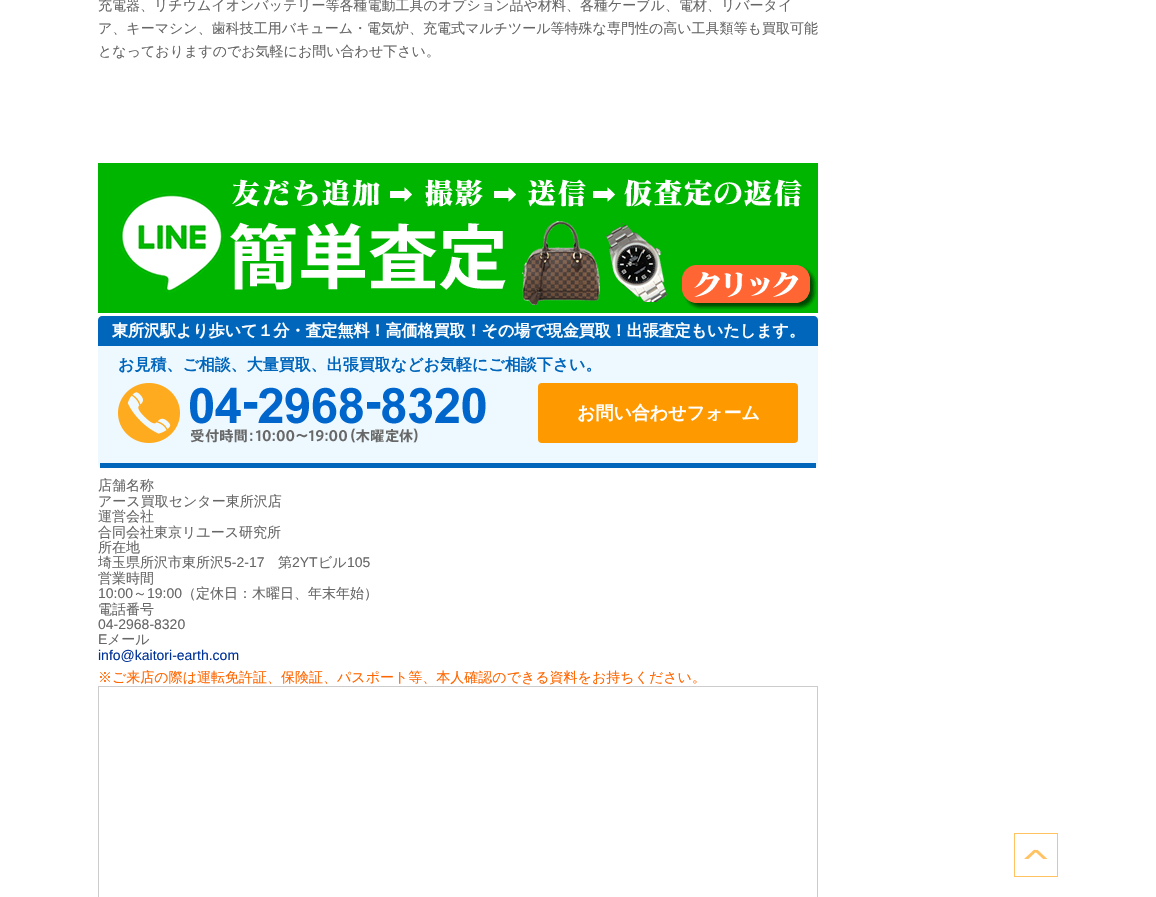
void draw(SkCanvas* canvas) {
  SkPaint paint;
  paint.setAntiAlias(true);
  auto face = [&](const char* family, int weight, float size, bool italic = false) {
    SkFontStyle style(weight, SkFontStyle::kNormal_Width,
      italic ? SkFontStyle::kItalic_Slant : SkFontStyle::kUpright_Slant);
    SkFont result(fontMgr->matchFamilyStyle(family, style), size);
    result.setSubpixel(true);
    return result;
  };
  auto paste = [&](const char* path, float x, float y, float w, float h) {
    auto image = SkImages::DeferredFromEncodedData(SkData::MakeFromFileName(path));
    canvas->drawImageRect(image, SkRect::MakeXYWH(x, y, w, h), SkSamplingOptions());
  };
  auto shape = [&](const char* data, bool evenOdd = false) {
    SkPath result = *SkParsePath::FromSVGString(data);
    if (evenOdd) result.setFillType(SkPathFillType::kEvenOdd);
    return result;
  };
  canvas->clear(0xffffffff);
  paste("img/1.png", 98, 163, 720, 150);
  paint.setColor(0xffeef9ff);
  canvas->drawRoundRect(SkRect::MakeXYWH(98, 316, 720, 152), 4, 4, paint);
  paint.setColor(0xff0066bb);
  canvas->drawRect(SkRect::MakeXYWH(100, 463, 716, 5), paint);
  canvas->drawPath(shape("M102 316H814C816 316 818 318 818 320V346H98V320C98 318 100 316 102 316Z"), paint);
  paste("img/2.png", 118, 383, 368, 60);
  paint.setColor(0xffff9900);
  canvas->drawRoundRect(SkRect::MakeXYWH(538, 383, 260, 60), 4, 4, paint);
  paint.setStroke(true);
  paint.setStrokeWidth(1);
  paint.setColor(0xffcccccc);
  canvas->drawRect(SkRect::MakeXYWH(98.5f, 686.5f, 719, 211), paint);
  paste("img/3.png", 1014, 833, 44, 44);
  auto f0 = face("WenQuanYi Zen Hei", 500, 14);
  paint.setStroke(false);
  paint.setColor(0xff666666);
  {
    const struct { const char* s; float x, y; } items[] = {
      {"充電器、リチウムイオンバッテリー等各種電動工具のオプション品や材料、各種ケーブル、電材、リバータイ", 98, 10},
      {"ア、キーマシン、歯科技工用バキューム・電気炉、充電式マルチツール等特殊な専門性の高い工具類等も買取可能", 98, 33},
      {"となっておりますのでお気軽にお問い合わせ下さい。", 98, 56},
    };
    for (auto [s, x, y] : items) {
      canvas->drawString(s, x, y, f0, paint);
    }
  }
  auto f1 = face("WenQuanYi Zen Hei", 700, 16);
  paint.setColor(0xffffffff);
  canvas->drawString("東所沢駅より歩いて１分・査定無料！高価格買取！その場で現金買取！出張査定もいたします。", 112, 336, f1, paint);
  paint.setColor(0xff0066bb);
  canvas->drawString("お見積、ご相談、大量買取、出張買取などお気軽にご相談下さい。", 118, 370, f1, paint);
  auto f2 = face("WenQuanYi Zen Hei", 700, 18);
  paint.setColor(0xffffffff);
  canvas->drawString("お問い合わせフォーム", 577, 419, f2, paint);
  paint.setColor(0xff666666);
  {
    const struct { const char* s; float x, y; } items[] = {
      {"店舗名称", 98, 490},
      {"アース買取センター東所沢店", 98, 506},
      {"運営会社", 98, 521},
      {"合同会社東京リユース研究所", 98, 537},
      {"所在地", 98, 552},
      {"埼玉県所沢市東所沢", 98, 567},
    };
    for (auto [s, x, y] : items) {
      canvas->drawString(s, x, y, f0, paint);
    }
  }
  auto f3 = face("Liberation Sans", 400, 14);
  canvas->drawString("5-2-17", 224, 567, f3, paint);
  canvas->drawString("第", 278, 567, f0, paint);
  canvas->drawString("2YT", 292, 567, f3, paint);
  canvas->drawString("ビル", 318, 567, f0, paint);
  canvas->drawString("105", 347, 567, f3, paint);
  canvas->drawString("営業時間", 98, 583, f0, paint);
  canvas->drawString("10:00", 98, 598, f3, paint);
  canvas->drawString("～", 133, 598, f0, paint);
  canvas->drawString("19:00", 147, 598, f3, paint);
  canvas->drawString("（定休日：木曜日、年末年始）", 182, 598, f0, paint);
  canvas->drawString("電話番号", 98, 614, f0, paint);
  canvas->drawString("04-2968-8320", 98, 629, f3, paint);
  canvas->drawString("E", 98, 644, f3, paint);
  canvas->drawString("メール", 107, 644, f0, paint);
  paint.setColor(0xff003399);
  canvas->drawString("info@kaitori-earth.com", 98, 660, f3, paint);
  paint.setColor(0xffff6600);
  canvas->drawString("※ご来店の際は運転免許証、保険証、パスポート等、本人確認のできる資料をお持ちください。", 98, 682, f0, paint);
}
